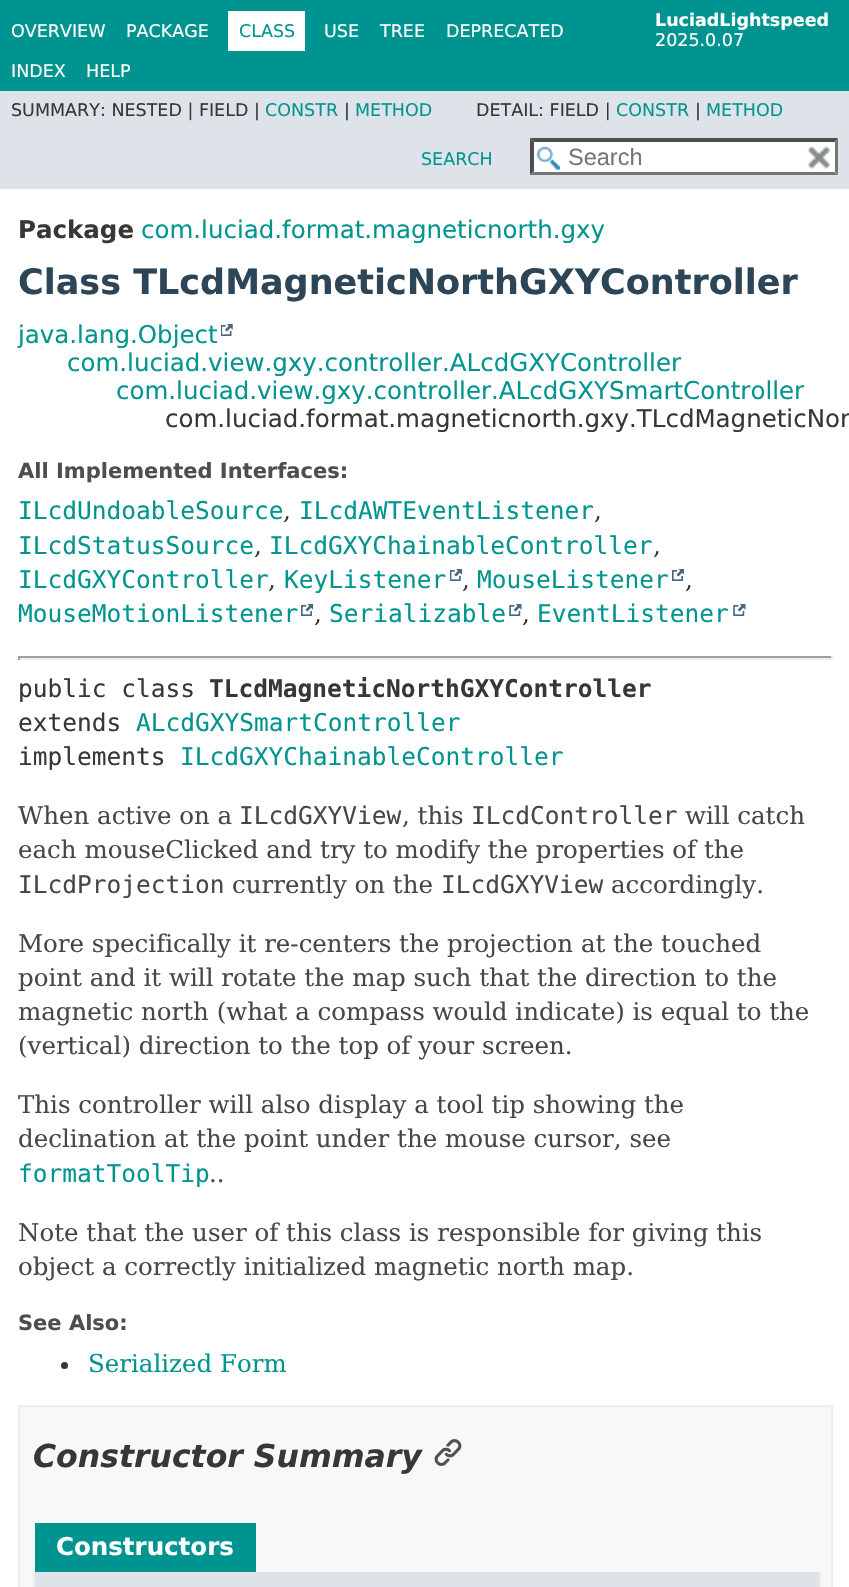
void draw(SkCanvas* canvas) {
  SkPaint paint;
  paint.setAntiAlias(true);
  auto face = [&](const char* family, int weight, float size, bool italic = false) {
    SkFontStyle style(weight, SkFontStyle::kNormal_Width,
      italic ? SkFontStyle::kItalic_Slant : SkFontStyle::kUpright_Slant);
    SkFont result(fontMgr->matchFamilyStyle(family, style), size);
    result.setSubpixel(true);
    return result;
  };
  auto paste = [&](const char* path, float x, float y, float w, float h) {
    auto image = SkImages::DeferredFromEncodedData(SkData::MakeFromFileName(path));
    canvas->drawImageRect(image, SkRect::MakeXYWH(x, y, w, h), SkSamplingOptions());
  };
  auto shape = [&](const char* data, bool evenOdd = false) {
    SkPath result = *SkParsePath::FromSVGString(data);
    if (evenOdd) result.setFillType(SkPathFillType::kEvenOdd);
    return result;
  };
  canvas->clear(0xffffffff);
  {
    const struct { float x, y, w, h; SkColor color; } items[] = {
      {0, 0, 849, 91, 0xff009490},
      {228, 11, 77, 40, 0xffffffff},
      {0, 91, 849, 98, 0xffdee3e9},
      {530, 138, 308, 37, 0xffffffff},
    };
    for (auto [x, y, w, h, color] : items) {
      paint.setColor(color);
      canvas->drawRect(SkRect::MakeXYWH(x, y, w, h), paint);
    }
  }
  paste("img/1.png", 537, 147, 23, 23);
  paint.setColor(0xff4f4f4f);
  canvas->drawPath(shape("M530 138H838L835 142H534Z"), paint);
  paint.setColor(0xff767676);
  canvas->drawPath(shape("M838 138V175L835 171.5V142Z"), paint);
  canvas->drawPath(shape("M838 175H530L534 172H835Z"), paint);
  paint.setColor(0xff4f4f4f);
  canvas->drawPath(shape("M530 175V138L534 142V171.5Z"), paint);
  paste("img/2.png", 807, 146, 24, 23);
  paste("img/3.png", 221, 324, 12, 12);
  paste("img/4.png", 450, 569, 12, 12);
  paste("img/5.png", 672, 569, 12, 12);
  paste("img/5.png", 301, 604, 12, 12);
  paste("img/6.png", 509, 604, 13, 12);
  paste("img/6.png", 733, 604, 13, 12);
  {
    const struct { float x, y, w, h; SkColor color; } items[] = {
      {18, 656, 815, 2, 0xff9f9f9f},
      {831, 656, 2, 4, 0xffeeeeee},
      {18, 658, 815, 2, 0xffeeeeee},
      {18, 656, 2, 4, 0xff9f9f9f},
    };
    for (auto [x, y, w, h, color] : items) {
      paint.setColor(color);
      canvas->drawRect(SkRect::MakeXYWH(x, y, w, h), paint);
    }
  }
  paint.setColor(0xff353833);
  canvas->drawCircle(64.5f, 1365.5f, 3.5f, paint);
  paint.setColor(0xfff8f8f8);
  canvas->drawRect(SkRect::MakeXYWH(19, 1406, 813, 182), paint);
  paint.setStroke(true);
  paint.setStrokeWidth(2);
  paint.setColor(0xffededed);
  canvas->drawRect(SkRect::MakeXYWH(19, 1406, 813, 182), paint);
  paste("img/7.png", 434, 1439, 28, 27);
  paint.setStroke(false);
  {
    const struct { float x, y, w, h; SkColor color; } items[] = {
      {35, 1523, 221, 49, 0xff009490},
      {819, 1572, 2, 15, 0xffeeeeee},
      {33, 1572, 2, 15, 0xffeeeeee},
      {35, 1572, 784, 15, 0xffdee3e9},
    };
    for (auto [x, y, w, h, color] : items) {
      paint.setColor(color);
      canvas->drawRect(SkRect::MakeXYWH(x, y, w, h), paint);
    }
  }
  auto f0 = face("DejaVu Sans", 400, 17.5f);
  paint.setColor(0xffffffff);
  canvas->drawString("OVERVIEW", 11, 37, f0, paint);
  canvas->drawString("PACKAGE", 126, 37, f0, paint);
  paint.setColor(0xff009490);
  canvas->drawString("CLASS", 239, 37, f0, paint);
  paint.setColor(0xffffffff);
  {
    const struct { const char* s; float x, y; } items[] = {
      {"USE", 324, 37},
      {"TREE", 380, 37},
      {"DEPRECATED", 446, 37},
      {"INDEX", 11, 77},
      {"HELP", 86, 77},
    };
    for (auto [s, x, y] : items) {
      canvas->drawString(s, x, y, f0, paint);
    }
  }
  auto f1 = face("DejaVu Sans", 700, 17.5f);
  canvas->drawString("LuciadLightspeed", 655, 26, f1, paint);
  canvas->drawString("2025.0.07", 655, 46, f0, paint);
  paint.setColor(0xff353833);
  canvas->drawString("SUMMARY: NESTED | FIELD |", 11, 116, f0, paint);
  paint.setColor(0xff009490);
  canvas->drawString("CONSTR", 265, 116, f0, paint);
  paint.setColor(0xff353833);
  canvas->drawString("|", 344, 116, f0, paint);
  paint.setColor(0xff009490);
  canvas->drawString("METHOD", 355, 116, f0, paint);
  paint.setColor(0xff353833);
  canvas->drawString("DETAIL: FIELD |", 476, 116, f0, paint);
  paint.setColor(0xff009490);
  canvas->drawString("CONSTR", 616, 116, f0, paint);
  paint.setColor(0xff353833);
  canvas->drawString("|", 695, 116, f0, paint);
  paint.setColor(0xff009490);
  canvas->drawString("METHOD", 706, 116, f0, paint);
  canvas->drawString("SEARCH", 421, 165, f0, paint);
  auto f2 = face("Liberation Sans", 400, 23.5f);
  paint.setColor(0xff757575);
  canvas->drawString("Search", 568, 165, f2, paint);
  auto f3 = face("DejaVu Sans", 700, 24.5f);
  paint.setColor(0xff353833);
  canvas->drawString("Package", 18, 238, f3, paint);
  auto f4 = face("DejaVu Sans", 400, 24.5f);
  paint.setColor(0xff009490);
  canvas->drawString("com.luciad.format.magneticnorth.gxy", 141, 238, f4, paint);
  auto f5 = face("DejaVu Sans", 700, 35);
  paint.setColor(0xff2c4557);
  canvas->drawString("Class TLcdMagneticNorthGXYController", 18, 294, f5, paint);
  paint.setColor(0xff009490);
  {
    const struct { const char* s; float x, y; } items[] = {
      {"java.lang.Object", 18, 343},
      {"com.luciad.view.gxy.controller.ALcdGXYController", 67, 371},
      {"com.luciad.view.gxy.controller.ALcdGXYSmartController", 116, 399},
    };
    for (auto [s, x, y] : items) {
      canvas->drawString(s, x, y, f4, paint);
    }
  }
  paint.setColor(0xff353833);
  canvas->drawString("com.luciad.format.magneticnorth.gxy.TLcdMagneticNor", 165, 427, f4, paint);
  auto f6 = face("DejaVu Sans", 700, 21);
  paint.setColor(0xff4e4e4e);
  canvas->drawString("All Implemented Interfaces:", 18, 478, f6, paint);
  auto f7 = face("DejaVu Sans Mono", 400, 24.5f);
  paint.setColor(0xff009490);
  canvas->drawString("ILcdUndoableSource", 18, 519, f7, paint);
  auto f8 = face("DejaVu Serif", 400, 24.5f);
  paint.setColor(0xff353833);
  canvas->drawString(",", 283, 519, f8, paint);
  paint.setColor(0xff009490);
  canvas->drawString("ILcdAWTEventListener", 299, 519, f7, paint);
  paint.setColor(0xff353833);
  canvas->drawString(",", 594, 519, f8, paint);
  paint.setColor(0xff009490);
  canvas->drawString("ILcdStatusSource", 18, 554, f7, paint);
  paint.setColor(0xff353833);
  canvas->drawString(",", 254, 554, f8, paint);
  paint.setColor(0xff009490);
  canvas->drawString("ILcdGXYChainableController", 269, 554, f7, paint);
  paint.setColor(0xff353833);
  canvas->drawString(",", 653, 554, f8, paint);
  paint.setColor(0xff009490);
  canvas->drawString("ILcdGXYController", 18, 588, f7, paint);
  paint.setColor(0xff353833);
  canvas->drawString(",", 268, 588, f8, paint);
  paint.setColor(0xff009490);
  canvas->drawString("KeyListener", 284, 588, f7, paint);
  paint.setColor(0xff353833);
  canvas->drawString(",", 462, 588, f8, paint);
  paint.setColor(0xff009490);
  canvas->drawString("MouseListener", 477, 588, f7, paint);
  paint.setColor(0xff353833);
  canvas->drawString(",", 685, 588, f8, paint);
  paint.setColor(0xff009490);
  canvas->drawString("MouseMotionListener", 18, 622, f7, paint);
  paint.setColor(0xff353833);
  canvas->drawString(",", 314, 622, f8, paint);
  paint.setColor(0xff009490);
  canvas->drawString("Serializable", 329, 622, f7, paint);
  paint.setColor(0xff353833);
  canvas->drawString(",", 522, 622, f8, paint);
  paint.setColor(0xff009490);
  canvas->drawString("EventListener", 537, 622, f7, paint);
  paint.setColor(0xff353833);
  canvas->drawString("public class", 18, 697, f7, paint);
  auto f9 = face("DejaVu Sans Mono", 700, 24.5f);
  canvas->drawString("TLcdMagneticNorthGXYController", 209, 697, f9, paint);
  canvas->drawString("extends", 18, 731, f7, paint);
  paint.setColor(0xff009490);
  canvas->drawString("ALcdGXYSmartController", 136, 731, f7, paint);
  paint.setColor(0xff353833);
  canvas->drawString("implements", 18, 765, f7, paint);
  paint.setColor(0xff009490);
  canvas->drawString("ILcdGXYChainableController", 180, 765, f7, paint);
  paint.setColor(0xff474747);
  canvas->drawString("When active on a", 18, 824, f8, paint);
  canvas->drawString("ILcdGXYView", 239, 824, f7, paint);
  canvas->drawString(", this", 402, 824, f8, paint);
  canvas->drawString("ILcdController", 471, 824, f7, paint);
  canvas->drawString("will catch", 685, 824, f8, paint);
  canvas->drawString("each mouseClicked and try to modify the properties of the", 18, 858, f8, paint);
  canvas->drawString("ILcdProjection", 18, 893, f7, paint);
  canvas->drawString("currently on the", 232, 893, f8, paint);
  canvas->drawString("ILcdGXYView", 441, 893, f7, paint);
  {
    const struct { const char* s; float x, y; } items[] = {
      {"accordingly.", 611, 893},
      {"More specifically it re-centers the projection at the touched", 18, 952},
      {"point and it will rotate the map such that the direction to the", 18, 986},
      {"magnetic north (what a compass would indicate) is equal to the", 18, 1020},
      {"(vertical) direction to the top of your screen.", 18, 1054},
      {"This controller will also display a tool tip showing the", 18, 1113},
      {"declination at the point under the mouse cursor, see", 18, 1147},
    };
    for (auto [s, x, y] : items) {
      canvas->drawString(s, x, y, f8, paint);
    }
  }
  paint.setColor(0xff009490);
  canvas->drawString("formatToolTip", 18, 1182, f7, paint);
  paint.setColor(0xff474747);
  {
    const struct { const char* s; float x, y; } items[] = {
      {"..", 209, 1182},
      {"Note that the user of this class is responsible for giving this", 18, 1241},
      {"object a correctly initialized magnetic north map.", 18, 1275},
    };
    for (auto [s, x, y] : items) {
      canvas->drawString(s, x, y, f8, paint);
    }
  }
  paint.setColor(0xff4e4e4e);
  canvas->drawString("See Also:", 18, 1330, f6, paint);
  paint.setColor(0xff009490);
  canvas->drawString("Serialized Form", 88, 1372, f8, paint);
  auto f10 = face("DejaVu Sans", 700, 31.5f, true);
  paint.setColor(0xff353833);
  canvas->drawString("Constructor Summary", 33, 1467, f10, paint);
  paint.setColor(0xffffffff);
  canvas->drawString("Constructors", 56, 1555, f3, paint);
}
